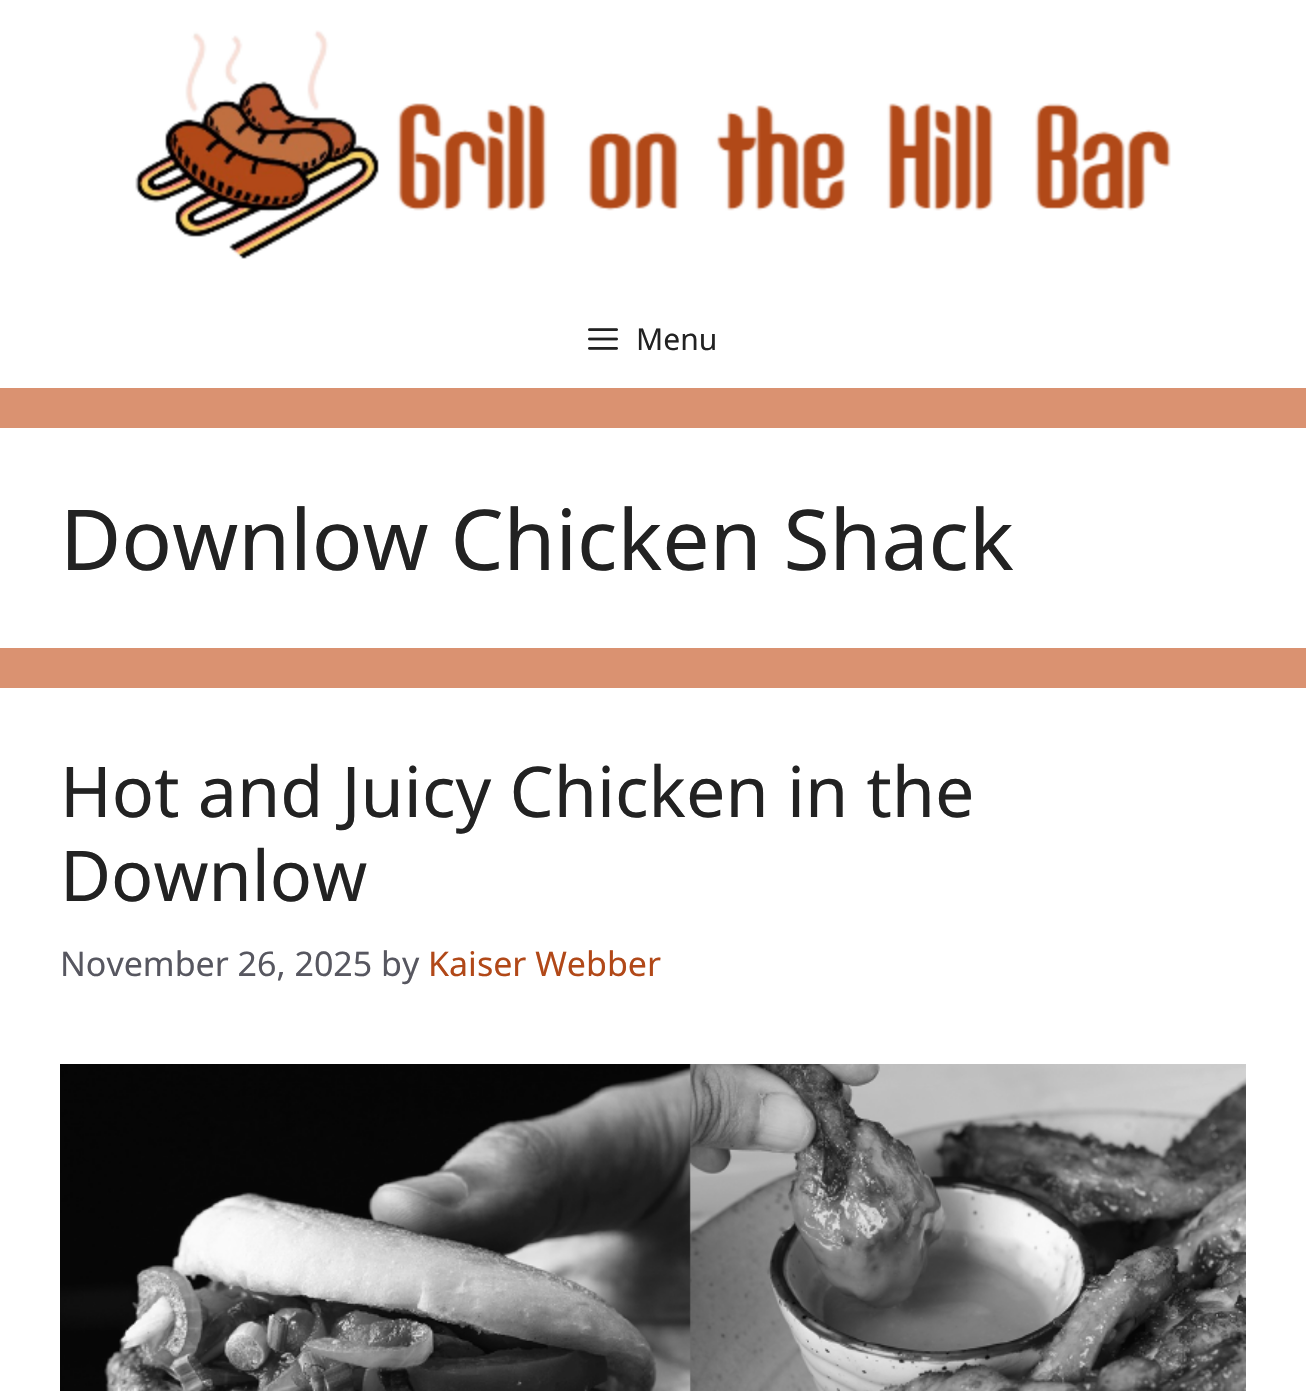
void draw(SkCanvas* canvas) {
  SkPaint paint;
  paint.setAntiAlias(true);
  auto face = [&](const char* family, int weight, float size, bool italic = false) {
    SkFontStyle style(weight, SkFontStyle::kNormal_Width,
      italic ? SkFontStyle::kItalic_Slant : SkFontStyle::kUpright_Slant);
    SkFont result(fontMgr->matchFamilyStyle(family, style), size);
    result.setSubpixel(true);
    return result;
  };
  auto paste = [&](const char* path, float x, float y, float w, float h) {
    auto image = SkImages::DeferredFromEncodedData(SkData::MakeFromFileName(path));
    canvas->drawImageRect(image, SkRect::MakeXYWH(x, y, w, h), SkSamplingOptions());
  };
  canvas->clear(0xffda9271);
  paint.setColor(0xffffffff);
  canvas->drawRect(SkRect::MakeXYWH(0, 0, 1306, 388), paint);
  paste("img/1.png", 135, 30, 1036, 229);
  paste("img/2.png", 588, 328, 30, 22);
  canvas->drawRect(SkRect::MakeXYWH(0, 428, 1306, 220), paint);
  canvas->drawRect(SkRect::MakeXYWH(0, 688, 1306, 703), paint);
  paste("img/3.png", 60, 1064, 1186, 327);
  auto f0 = face("Noto Sans", 400, 30);
  paint.setColor(0xff222222);
  canvas->drawString("Menu", 636, 350, f0, paint);
  auto f1 = face("Noto Sans", 400, 84);
  canvas->drawString("Downlow Chicken Shack", 60, 570, f1, paint);
  auto f2 = face("Noto Sans", 400, 70);
  canvas->drawString("Hot and Juicy Chicken in the", 60, 817, f2, paint);
  canvas->drawString("Downlow", 60, 901, f2, paint);
  auto f3 = face("Noto Sans", 400, 34);
  paint.setColor(0xff575760);
  canvas->drawString("November 26, 2025 by", 60, 976, f3, paint);
  paint.setColor(0xffb14818);
  canvas->drawString("Kaiser Webber", 428, 976, f3, paint);
}
